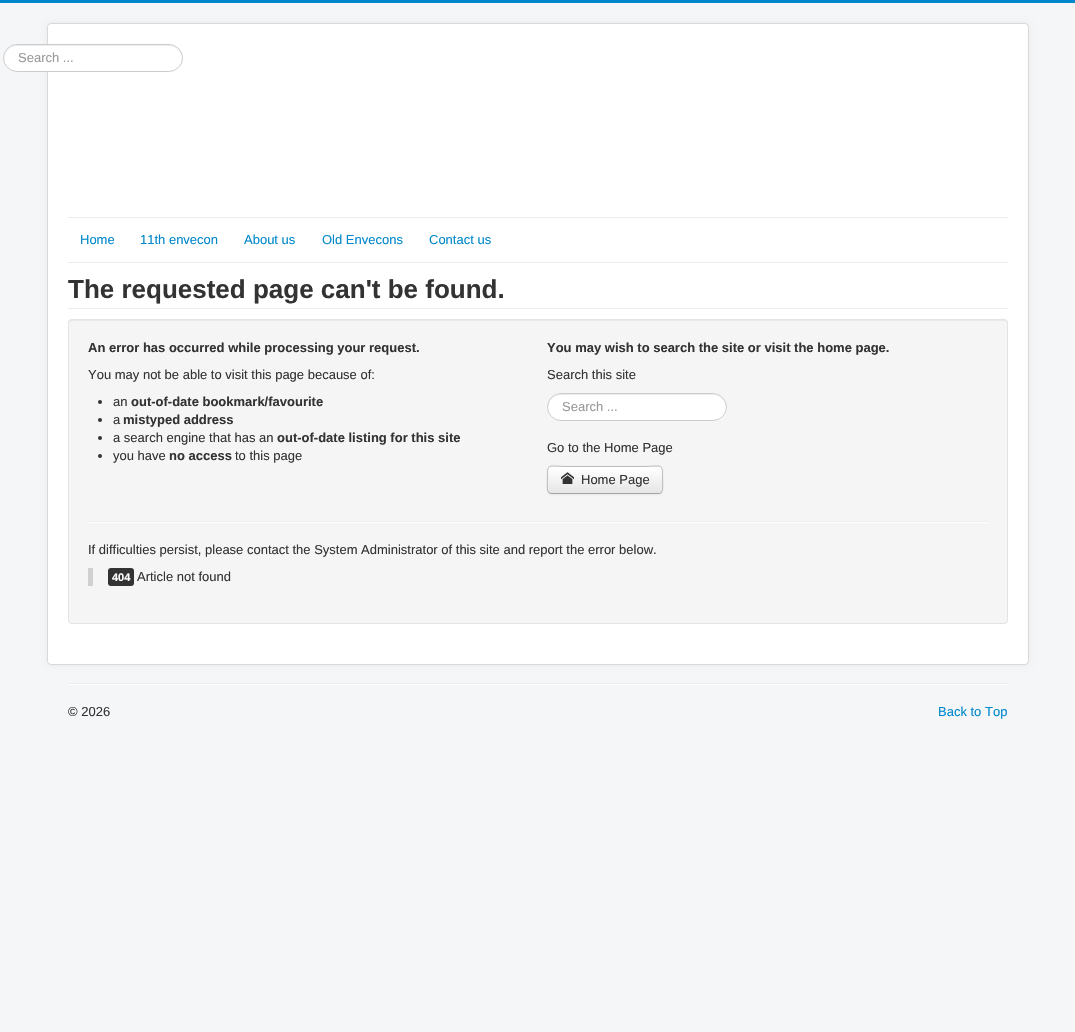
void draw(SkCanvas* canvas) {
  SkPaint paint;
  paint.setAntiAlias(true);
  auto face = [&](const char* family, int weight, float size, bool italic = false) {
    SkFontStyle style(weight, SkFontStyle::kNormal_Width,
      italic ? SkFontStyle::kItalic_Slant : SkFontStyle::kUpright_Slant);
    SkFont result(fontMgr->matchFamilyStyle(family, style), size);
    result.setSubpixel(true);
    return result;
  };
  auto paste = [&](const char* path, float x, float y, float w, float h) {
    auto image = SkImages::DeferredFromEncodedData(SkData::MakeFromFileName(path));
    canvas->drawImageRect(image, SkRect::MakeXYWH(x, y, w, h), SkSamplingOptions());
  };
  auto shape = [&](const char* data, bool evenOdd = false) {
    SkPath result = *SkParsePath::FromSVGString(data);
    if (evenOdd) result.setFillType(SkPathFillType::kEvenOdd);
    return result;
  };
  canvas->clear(0xfff4f6f7);
  paint.setColor(0xff0088cc);
  canvas->drawRect(SkRect::MakeXYWH(0, 0, 1075, 3), paint);
  paint.setColor(0x0d000000);
  paint.setMaskFilter(SkMaskFilter::MakeBlur(kNormal_SkBlurStyle, 3));
  canvas->drawRoundRect(SkRect::MakeXYWH(47, 23, 982, 642), 4, 4, paint);
  paint.setMaskFilter(nullptr);
  paint.setColor(0xffffffff);
  canvas->drawRoundRect(SkRect::MakeXYWH(47, 23, 982, 642), 4, 4, paint);
  paint.setStroke(true);
  paint.setStrokeWidth(1);
  paint.setColor(0x26000000);
  canvas->drawRoundRect(SkRect::MakeXYWH(47.5f, 23.5f, 981, 641), 3.5f, 3.5f, paint);
  paint.setStroke(false);
  paint.setColor(0xffffffff);
  canvas->drawRoundRect(SkRect::MakeXYWH(3, 44, 180, 28), 14, 14, paint);
  paint.setColor(0xffececec);
  canvas->drawPath(shape("M17 46H169C176 46 182 52 182 59C183 39 153 45 144 45H42C33 45 3 39 4 59C4 52 10 46 17 46Z"), paint);
  paint.setStroke(true);
  paint.setColor(0xffcccccc);
  canvas->drawRoundRect(SkRect::MakeXYWH(3.5f, 44.5f, 179, 27), 13.5f, 13.5f, paint);
  paint.setStroke(false);
  {
    const struct { float x, y, w, h; SkColor color; } items[] = {
      {68, 217, 940, 1, 0xffececec},
      {68, 262, 940, 1, 0xffececec},
      {68, 308, 940, 1, 0xffeeeeee},
    };
    for (auto [x, y, w, h, color] : items) {
      paint.setColor(color);
      canvas->drawRect(SkRect::MakeXYWH(x, y, w, h), paint);
    }
  }
  paint.setColor(0xfff5f5f5);
  canvas->drawRoundRect(SkRect::MakeXYWH(68, 319, 940, 305), 4, 4, paint);
  paint.setColor(0xffe9e9e9);
  canvas->drawPath(shape("M72 321H1004C1006 321 1007 322 1007 324C1007 322 1006 320 1004 320H72C70 320 69 322 69 324C69 322 70 321 72 321Z"), paint);
  paint.setStroke(true);
  paint.setColor(0xffe3e3e3);
  canvas->drawRoundRect(SkRect::MakeXYWH(68.5f, 319.5f, 939, 304), 3.5f, 3.5f, paint);
  paint.setStroke(false);
  paint.setColor(0xff333333);
  canvas->drawCircle(100, 402, 2, paint);
  canvas->drawCircle(100, 420, 2, paint);
  canvas->drawCircle(100, 438, 2, paint);
  canvas->drawCircle(100, 456, 2, paint);
  paint.setColor(0xffffffff);
  canvas->drawRoundRect(SkRect::MakeXYWH(547, 393, 180, 28), 14, 14, paint);
  paint.setColor(0xffececec);
  canvas->drawPath(shape("M561 395H713C720 395 726 401 726 408C727 388 697 394 688 394H586C577 394 547 388 548 408C548 401 554 395 561 395Z"), paint);
  paint.setStroke(true);
  paint.setColor(0xffcccccc);
  canvas->drawRoundRect(SkRect::MakeXYWH(547.5f, 393.5f, 179, 27), 13.5f, 13.5f, paint);
  paint.setStroke(false);
  paint.setColor(0x0d000000);
  paint.setMaskFilter(SkMaskFilter::MakeBlur(kNormal_SkBlurStyle, 1));
  canvas->drawRoundRect(SkRect::MakeXYWH(547, 467, 116, 28), 4, 4, paint);
  paint.setMaskFilter(nullptr);
  paint.setColor(0xfff5f5f5);
  canvas->drawRoundRect(SkRect::MakeXYWH(547, 466, 116, 28), 4, 4, paint);
  canvas->save();
  canvas->clipPath(shape("M551 466H659C661 466 663 468 663 470V490C663 492 661 494 659 494H551C549 494 547 492 547 490V470C547 468 549 466 551 466Z"), true);
  {
    const SkColor colors[] = {0xffffffff, 0xffe6e6e6};
    const float stops[] = {0, 1};
    const SkPoint ends[] = {{605, 467}, {605, 493}};
    paint.setShader(SkGradientShader::MakeLinear(ends, colors, stops, 2, SkTileMode::kClamp));
    paint.setAlpha(255);
  }
  canvas->drawRect(SkRect::MakeXYWH(547, 467, 116, 26), paint);
  canvas->restore();
  paint.setStroke(true);
  paint.setShader(nullptr);
  paint.setColor(0xffa2a2a2);
  canvas->drawPath(shape("M661.5 492.5L659.5 493.5H569H551L548.5 492.5"), paint);
  paint.setColor(0xffbbbbbb);
  canvas->drawPath(shape("M548.5 492.5C546.5 490 547.5 482.5 547.5 480C547.5 462 546.5 466.5 569 466.5H641C663.5 466.5 662.5 462 662.5 480C662.5 482.5 663.5 490 661.5 492.5"), paint);
  paste("img/1.png", 561, 472, 13, 12);
  paint.setStroke(false);
  {
    const struct { float x, y, w, h; SkColor color; } items[] = {
      {88, 521, 900, 1, 0xffeeeeee},
      {88, 522, 900, 1, 0xffffffff},
      {88, 568, 5, 18, 0xffd0d0d0},
    };
    for (auto [x, y, w, h, color] : items) {
      paint.setColor(color);
      canvas->drawRect(SkRect::MakeXYWH(x, y, w, h), paint);
    }
  }
  paint.setColor(0xff333333);
  canvas->drawRoundRect(SkRect::MakeXYWH(108, 568, 26, 18), 3, 3, paint);
  paint.setColor(0xffeeeeee);
  canvas->drawRect(SkRect::MakeXYWH(68, 683, 940, 1), paint);
  paint.setColor(0xffffffff);
  canvas->drawRect(SkRect::MakeXYWH(68, 684, 940, 1), paint);
  auto f0 = face("Liberation Sans", 400, 13);
  paint.setColor(0xff999999);
  canvas->drawString("Search ...", 18, 62, f0, paint);
  paint.setColor(0xff0088cc);
  {
    const struct { const char* s; float x, y; } items[] = {
      {"Home", 80, 244},
      {"11th envecon", 140, 244},
      {"About us", 244, 244},
      {"Old Envecons", 322, 244},
      {"Contact us", 429, 244},
    };
    for (auto [s, x, y] : items) {
      canvas->drawString(s, x, y, f0, paint);
    }
  }
  auto f1 = face("Liberation Sans", 700, 26);
  paint.setColor(0xff333333);
  canvas->drawString("The requested page can't be found.", 68, 298, f1, paint);
  auto f2 = face("Liberation Sans", 700, 13);
  canvas->drawString("An error has occurred while processing your request.", 88, 352, f2, paint);
  canvas->drawString("You may not be able to visit this page because of:", 88, 379, f0, paint);
  canvas->drawString("an", 113, 406, f0, paint);
  canvas->drawString("out-of-date bookmark/favourite", 131, 406, f2, paint);
  canvas->drawString("a", 113, 424, f0, paint);
  canvas->drawString("mistyped address", 123, 424, f2, paint);
  canvas->drawString("a search engine that has an", 113, 442, f0, paint);
  canvas->drawString("out-of-date listing for this site", 277, 442, f2, paint);
  canvas->drawString("you have", 113, 460, f0, paint);
  canvas->drawString("no access", 169, 460, f2, paint);
  canvas->drawString("to this page", 235, 460, f0, paint);
  canvas->drawString("You may wish to search the site or visit the home page.", 547, 352, f2, paint);
  canvas->drawString("Search this site", 547, 379, f0, paint);
  paint.setColor(0xff999999);
  canvas->drawString("Search ...", 562, 411, f0, paint);
  paint.setColor(0xff333333);
  {
    const struct { const char* s; float x, y; } items[] = {
      {"Go to the Home Page", 547, 452},
      {"Home Page", 581, 484},
      {"If difficulties persist, please contact the System Administrator of this site and report the error below.", 88, 554},
    };
    for (auto [s, x, y] : items) {
      canvas->drawString(s, x, y, f0, paint);
    }
  }
  auto f3 = face("Liberation Sans", 700, 11);
  paint.setColor(0xffffffff);
  canvas->drawString("404", 112, 581, f3, paint);
  paint.setColor(0xff333333);
  canvas->drawString("Article not found", 137, 581, f0, paint);
  canvas->drawString("© 2026", 68, 716, f0, paint);
  paint.setColor(0xff0088cc);
  canvas->drawString("Back to Top", 938, 716, f0, paint);
}
